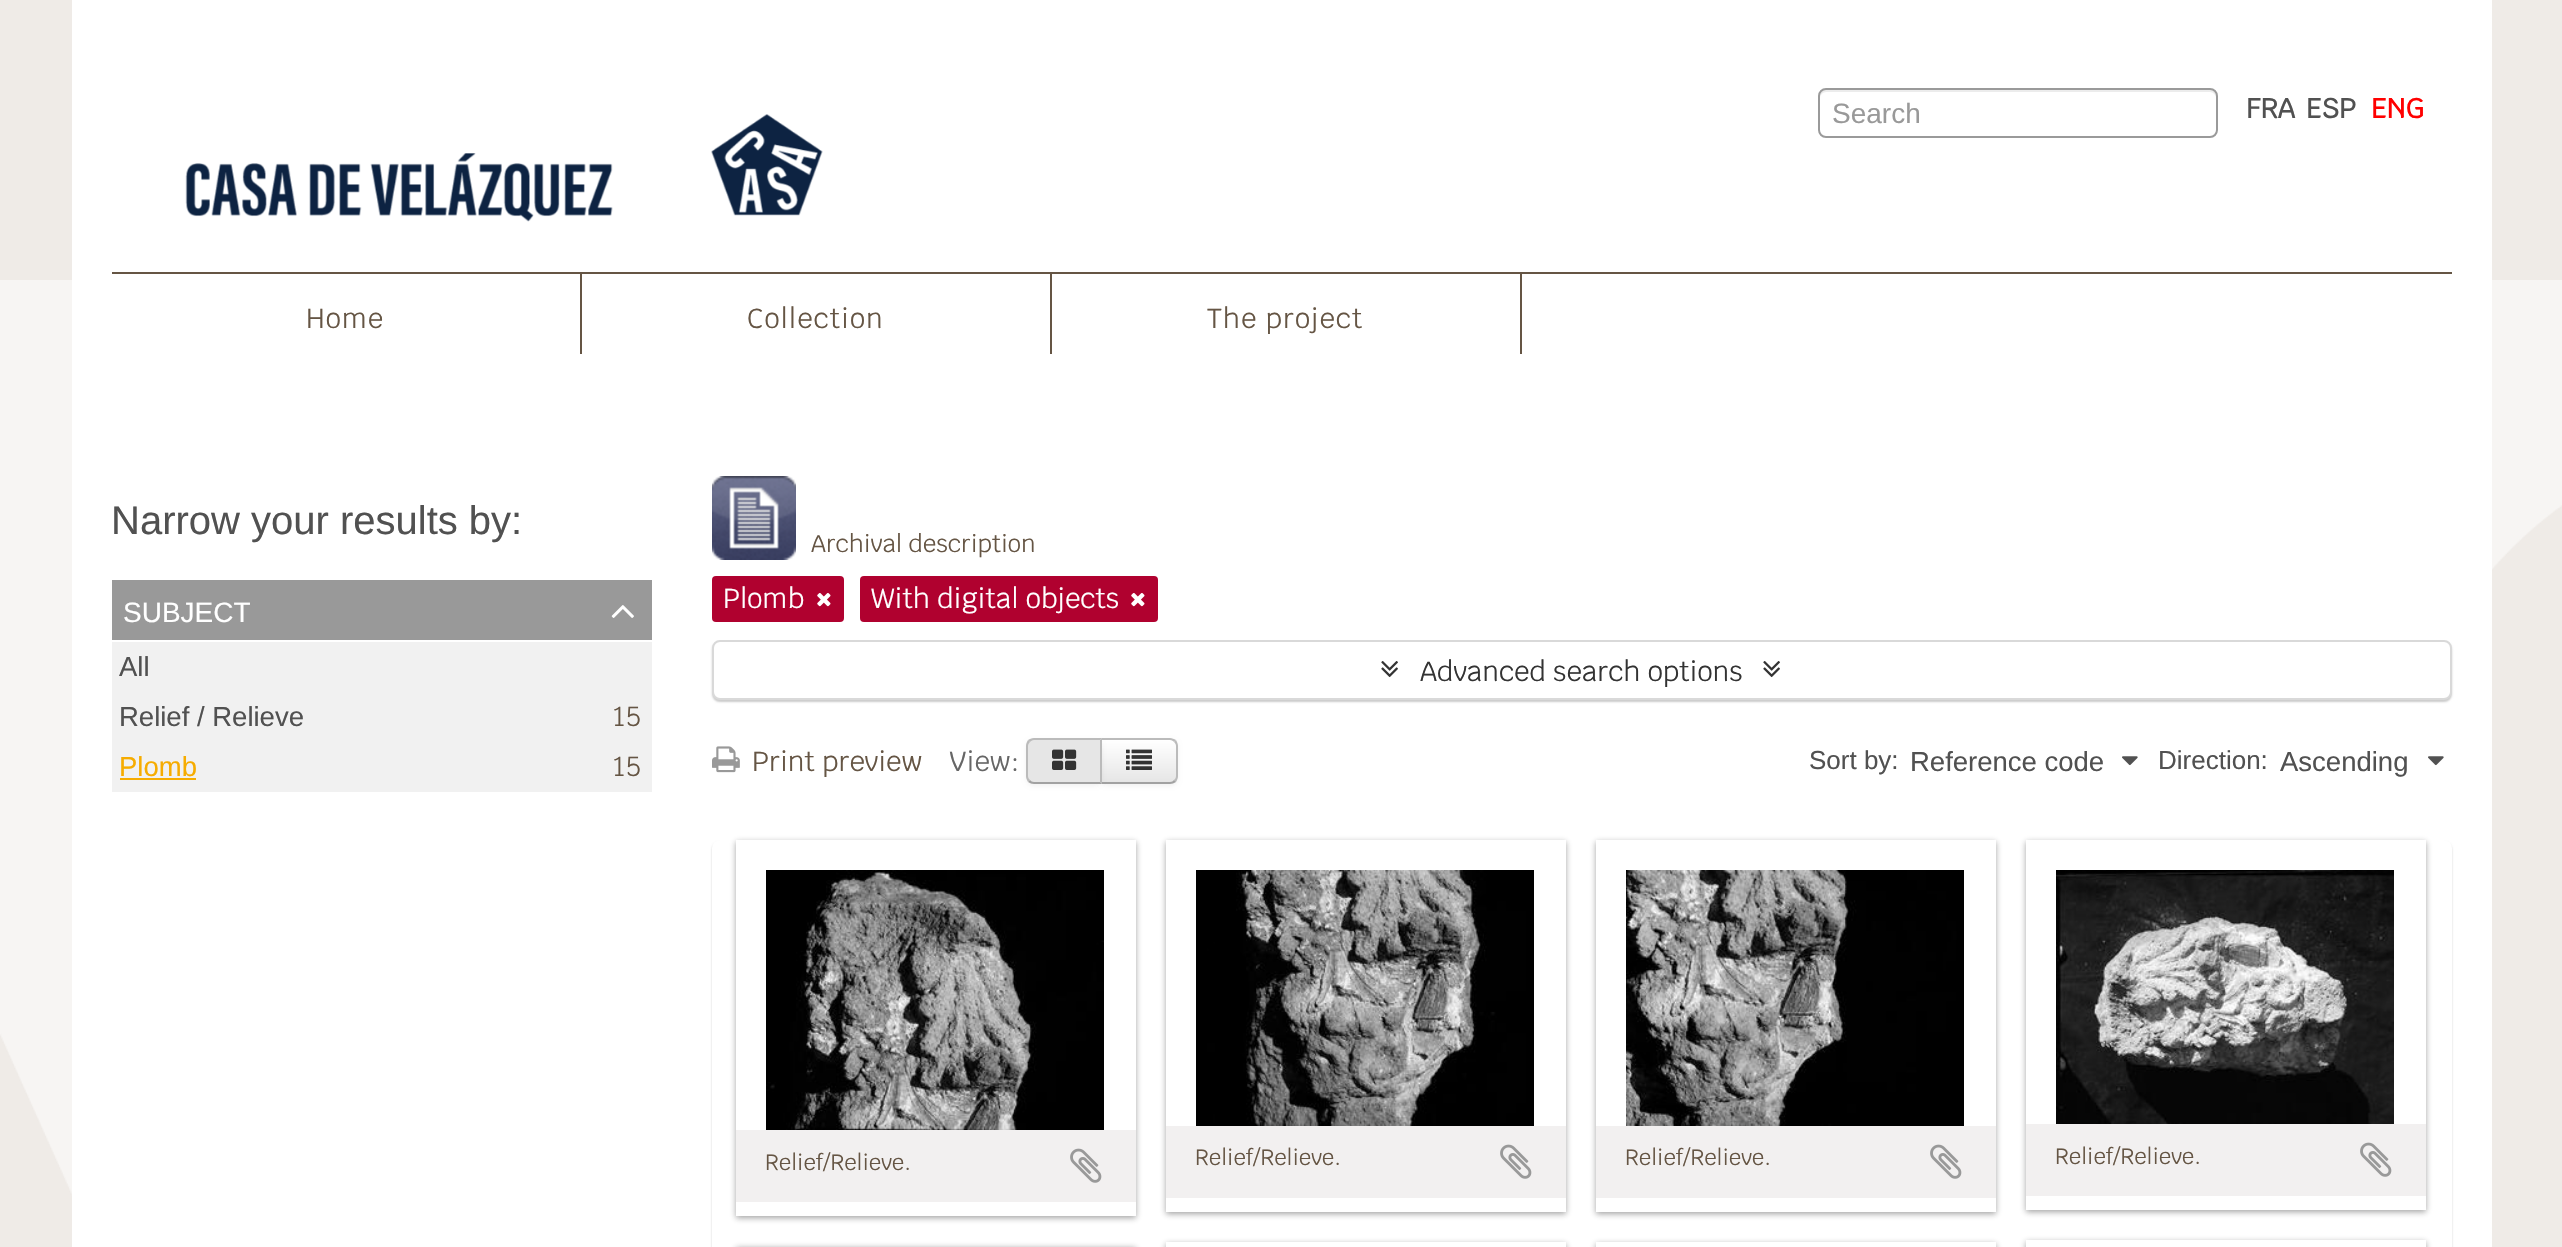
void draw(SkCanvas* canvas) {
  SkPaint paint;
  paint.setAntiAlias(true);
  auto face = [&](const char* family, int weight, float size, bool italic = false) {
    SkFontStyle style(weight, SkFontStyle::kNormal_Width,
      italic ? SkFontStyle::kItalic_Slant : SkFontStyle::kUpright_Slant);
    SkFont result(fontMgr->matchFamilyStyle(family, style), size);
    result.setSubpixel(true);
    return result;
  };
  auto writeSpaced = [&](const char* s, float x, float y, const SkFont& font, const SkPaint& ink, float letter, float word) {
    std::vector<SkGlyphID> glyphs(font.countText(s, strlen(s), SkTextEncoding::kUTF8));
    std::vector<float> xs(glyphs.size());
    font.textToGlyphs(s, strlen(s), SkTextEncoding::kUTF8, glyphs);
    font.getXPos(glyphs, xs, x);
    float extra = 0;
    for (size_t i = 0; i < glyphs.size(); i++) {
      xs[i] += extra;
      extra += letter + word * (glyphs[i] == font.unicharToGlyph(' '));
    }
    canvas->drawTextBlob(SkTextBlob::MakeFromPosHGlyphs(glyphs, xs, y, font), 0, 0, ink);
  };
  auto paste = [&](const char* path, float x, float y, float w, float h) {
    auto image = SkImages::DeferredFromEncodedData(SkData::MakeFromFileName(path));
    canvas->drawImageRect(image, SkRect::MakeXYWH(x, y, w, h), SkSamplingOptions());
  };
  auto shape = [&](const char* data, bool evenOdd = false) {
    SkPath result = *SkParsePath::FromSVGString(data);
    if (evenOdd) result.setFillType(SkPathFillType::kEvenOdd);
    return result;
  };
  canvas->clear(0xffefebe7);
  paste("img/2.png", 0, 280, 2562, 916);
  paint.setColor(0xffffffff);
  canvas->drawRect(SkRect::MakeXYWH(72, 0, 2420, 1247), paint);
  paste("img/1.png", 185, 114, 638, 108);
  paint.setColor(0xffececec);
  canvas->drawPath(shape("M1826 92H2210C2213 92 2216 95 2216 98C2216 94 2215 90 2210 90H1826C1821 90 1820 94 1820 98C1820 95 1823 92 1826 92Z"), paint);
  paint.setStroke(true);
  paint.setStrokeWidth(2);
  paint.setColor(0xff9a9a9a);
  canvas->drawRoundRect(SkRect::MakeXYWH(1819, 89, 398, 48), 7, 7, paint);
  paint.setStroke(false);
  {
    const struct { float x, y, w, h; SkColor color; } items[] = {
      {112, 272, 2340, 2, 0xff655544},
      {580, 274, 2, 80, 0xff655544},
      {1050, 274, 2, 80, 0xff655544},
      {1520, 274, 2, 80, 0xff655544},
      {112, 580, 540, 60, 0xff999999},
    };
    for (auto [x, y, w, h, color] : items) {
      paint.setColor(color);
      canvas->drawRect(SkRect::MakeXYWH(x, y, w, h), paint);
    }
  }
  paste("img/3.png", 611, 605, 23, 13);
  paint.setColor(0xfff1f1f1);
  canvas->drawRect(SkRect::MakeXYWH(112, 642, 540, 150), paint);
  paint.setColor(0xfff6ac00);
  canvas->drawRect(SkRect::MakeXYWH(120, 778, 76, 2), paint);
  paste("img/4.png", 712, 476, 84, 84);
  paint.setColor(0xffb0012f);
  canvas->drawRoundRect(SkRect::MakeXYWH(712, 576, 132, 46), 4, 4, paint);
  paste("img/5.png", 817, 593, 14, 14);
  canvas->drawRoundRect(SkRect::MakeXYWH(860, 576, 298, 46), 4, 4, paint);
  paste("img/5.png", 1131, 593, 14, 14);
  paint.setColor(0x33000000);
  paint.setMaskFilter(SkMaskFilter::MakeBlur(kNormal_SkBlurStyle, 1));
  canvas->drawRoundRect(SkRect::MakeXYWH(712, 642, 1740, 60), 8, 8, paint);
  paint.setMaskFilter(nullptr);
  paint.setColor(0xffffffff);
  canvas->drawRoundRect(SkRect::MakeXYWH(713, 641, 1738, 58), 7, 7, paint);
  paint.setStroke(true);
  paint.setColor(0xffd9d9d9);
  canvas->drawRoundRect(SkRect::MakeXYWH(713, 641, 1738, 58), 7, 7, paint);
  paste("img/6.png", 1381, 661, 17, 17);
  paste("img/6.png", 1763, 661, 17, 17);
  paste("img/7.png", 712, 746, 28, 27);
  paint.setStroke(false);
  paint.setColor(0x0d000000);
  paint.setMaskFilter(SkMaskFilter::MakeBlur(kNormal_SkBlurStyle, 2));
  canvas->drawRoundRect(SkRect::MakeXYWH(1100, 740, 78, 46), 8, 8, paint);
  paint.setMaskFilter(nullptr);
  canvas->save();
  canvas->clipPath(shape("M1100 738H1170C1174.5 738 1178 741.5 1178 746V776C1178 780.5 1174.5 784 1170 784H1100Z"), true);
  {
    const SkColor colors[] = {0xffffffff, 0xffe6e6e6};
    const float stops[] = {0, 1};
    const SkPoint ends[] = {{1139, 740}, {1139, 782}};
    paint.setShader(SkGradientShader::MakeLinear(ends, colors, stops, 2, SkTileMode::kClamp));
    paint.setAlpha(255);
  }
  canvas->drawRect(SkRect::MakeXYWH(1102, 740, 76, 42), paint);
  canvas->restore();
  paint.setShader(nullptr);
  paint.setColor(0xffbbbbbb);
  canvas->drawPath(shape("M1100 738L1102 740H1170C1172 740 1173 741 1174 742L1176 740C1174 739 1172 738 1170 738Z"), paint);
  canvas->drawPath(shape("M1178 776V746C1178 744 1177 742 1176 740L1174 742C1175 743 1176 744 1176 746V776C1176 778 1175 779 1174 780L1176 782C1177 780 1178 778 1178 776Z"), paint);
  paint.setColor(0xffa2a2a2);
  canvas->drawPath(shape("M1170 784C1172 784 1174 783 1176 782L1174 780C1173 781 1172 782 1170 782H1102L1100 784Z"), paint);
  paint.setColor(0x0d000000);
  paint.setMaskFilter(SkMaskFilter::MakeBlur(kNormal_SkBlurStyle, 2));
  canvas->drawRoundRect(SkRect::MakeXYWH(1026, 740, 76, 46), 8, 8, paint);
  paint.setMaskFilter(nullptr);
  paint.setColor(0xffe6e6e6);
  canvas->drawPath(shape("M1034 738H1102V784H1034C1029.5 784 1026 780.5 1026 776V746C1026 741.5 1029.5 738 1034 738Z"), paint);
  paint.setColor(0xffbbbbbb);
  canvas->drawPath(shape("M1034 738C1032 738 1030 739 1028 740L1030 742C1031 741 1032 740 1034 740H1100L1102 738Z"), paint);
  canvas->drawPath(shape("M1102 738L1100 740V782L1102 784Z"), paint);
  paint.setColor(0xffa2a2a2);
  canvas->drawPath(shape("M1102 784L1100 782H1034C1032 782 1031 781 1030 780L1028 782C1030 783 1032 784 1034 784Z"), paint);
  paint.setColor(0xffbbbbbb);
  canvas->drawPath(shape("M1026 746V776C1026 778 1027 780 1028 782L1030 780C1029 779 1028 778 1028 776V746C1028 744 1029 743 1030 742L1028 740C1027 742 1026 744 1026 746Z"), paint);
  paste("img/8.png", 1052, 749, 25, 21);
  paste("img/9.png", 1126, 749, 26, 21);
  paste("img/10.png", 2122, 756, 16, 10);
  paste("img/10.png", 2428, 756, 16, 10);
  paint.setColor(0x33000000);
  paint.setMaskFilter(SkMaskFilter::MakeBlur(kNormal_SkBlurStyle, 1));
  canvas->drawRoundRect(SkRect::MakeXYWH(712, 842, 1740, 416), 8, 8, paint);
  paint.setMaskFilter(nullptr);
  paint.setColor(0xffffffff);
  canvas->drawRoundRect(SkRect::MakeXYWH(712, 840, 1740, 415), 8, 8, paint);
  canvas->save();
  canvas->clipPath(shape("M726 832H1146V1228H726ZM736 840H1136V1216H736Z", true), true);
  paint.setColor(0x66191919);
  paint.setMaskFilter(SkMaskFilter::MakeBlur(kNormal_SkBlurStyle, 3));
  canvas->drawRect(SkRect::MakeXYWH(736, 842, 400, 376), paint);
  paint.setMaskFilter(nullptr);
  canvas->restore();
  paste("img/11.png", 766, 870, 338, 260);
  paint.setColor(0xfff2f0f0);
  canvas->drawRect(SkRect::MakeXYWH(736, 1130, 400, 72), paint);
  paste("img/12.png", 1070, 1148, 32, 35);
  canvas->save();
  canvas->clipPath(shape("M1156 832H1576V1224H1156ZM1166 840H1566V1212H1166Z", true), true);
  paint.setColor(0x66191919);
  paint.setMaskFilter(SkMaskFilter::MakeBlur(kNormal_SkBlurStyle, 3));
  canvas->drawRect(SkRect::MakeXYWH(1166, 842, 400, 372), paint);
  paint.setMaskFilter(nullptr);
  canvas->restore();
  paste("img/13.png", 1196, 870, 338, 256);
  paint.setColor(0xfff2f0f0);
  canvas->drawRect(SkRect::MakeXYWH(1166, 1126, 400, 72), paint);
  paste("img/12.png", 1500, 1144, 32, 35);
  canvas->save();
  canvas->clipPath(shape("M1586 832H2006V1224H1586ZM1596 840H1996V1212H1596Z", true), true);
  paint.setColor(0x66191919);
  paint.setMaskFilter(SkMaskFilter::MakeBlur(kNormal_SkBlurStyle, 3));
  canvas->drawRect(SkRect::MakeXYWH(1596, 842, 400, 372), paint);
  paint.setMaskFilter(nullptr);
  canvas->restore();
  paste("img/14.png", 1626, 870, 338, 256);
  paint.setColor(0xfff2f0f0);
  canvas->drawRect(SkRect::MakeXYWH(1596, 1126, 400, 72), paint);
  paste("img/12.png", 1930, 1144, 32, 35);
  canvas->save();
  canvas->clipPath(shape("M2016 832H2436V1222H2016ZM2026 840H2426V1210H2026Z", true), true);
  paint.setColor(0x66191919);
  paint.setMaskFilter(SkMaskFilter::MakeBlur(kNormal_SkBlurStyle, 3));
  canvas->drawRect(SkRect::MakeXYWH(2026, 842, 400, 370), paint);
  paint.setMaskFilter(nullptr);
  canvas->restore();
  paste("img/15.png", 2056, 870, 338, 254);
  paint.setColor(0xfff2f0f0);
  canvas->drawRect(SkRect::MakeXYWH(2026, 1124, 400, 72), paint);
  paste("img/12.png", 2360, 1142, 32, 35);
  paint.setColor(0x66191919);
  paint.setMaskFilter(SkMaskFilter::MakeBlur(kNormal_SkBlurStyle, 3));
  canvas->drawRect(SkRect::MakeXYWH(736, 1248, 400, 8), paint);
  paint.setMaskFilter(nullptr);
  canvas->save();
  canvas->clipPath(shape("M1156 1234H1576V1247H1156ZM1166 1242H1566V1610H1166Z", true), true);
  paint.setMaskFilter(SkMaskFilter::MakeBlur(kNormal_SkBlurStyle, 3));
  canvas->drawRect(SkRect::MakeXYWH(1166, 1244, 400, 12), paint);
  paint.setMaskFilter(nullptr);
  canvas->restore();
  canvas->save();
  canvas->clipPath(shape("M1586 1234H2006V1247H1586ZM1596 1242H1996V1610H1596Z", true), true);
  paint.setMaskFilter(SkMaskFilter::MakeBlur(kNormal_SkBlurStyle, 3));
  canvas->drawRect(SkRect::MakeXYWH(1596, 1244, 400, 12), paint);
  paint.setMaskFilter(nullptr);
  canvas->restore();
  canvas->save();
  canvas->clipPath(shape("M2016 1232H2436V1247H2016ZM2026 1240H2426V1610H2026Z", true), true);
  paint.setMaskFilter(SkMaskFilter::MakeBlur(kNormal_SkBlurStyle, 3));
  canvas->drawRect(SkRect::MakeXYWH(2026, 1242, 400, 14), paint);
  paint.setMaskFilter(nullptr);
  canvas->restore();
  auto f0 = face("Liberation Sans", 400, 28);
  paint.setColor(0xff999999);
  canvas->drawString("Search", 1832, 123, f0, paint);
  auto f1 = face("Krub", 700, 27.5f);
  paint.setColor(0xff515151);
  canvas->drawString("FRA", 2246, 118, f1, paint);
  canvas->drawString("ESP", 2306, 118, f1, paint);
  paint.setColor(0xffff0000);
  canvas->drawString("ENG", 2371, 118, f1, paint);
  auto f2 = face("Krub", 400, 27.5f);
  paint.setColor(0xff655544);
  {
    const struct { const char* s; float x, y; } items[] = {
      {"Home", 306, 328},
      {"Collection", 747, 328},
      {"The project", 1207, 328},
    };
    for (auto [s, x, y] : items) {
      writeSpaced(s, x, y, f2, paint, 1, 0);
    }
  }
  auto f3 = face("Liberation Sans", 400, 40);
  paint.setColor(0xff515151);
  canvas->drawString("Narrow your results by:", 111, 534, f3, paint);
  paint.setColor(0xffffffff);
  canvas->drawString("SUBJECT", 123, 622, f0, paint);
  auto f4 = face("Liberation Sans", 400, 27.5f);
  paint.setColor(0xff515151);
  canvas->drawString("All", 119, 676, f4, paint);
  canvas->drawString("Relief / Relieve", 119, 726, f4, paint);
  paint.setColor(0xff655544);
  canvas->drawString("15", 613, 726, f2, paint);
  paint.setColor(0xfff6ac00);
  canvas->drawString("Plomb", 119, 776, f4, paint);
  paint.setColor(0xff655544);
  canvas->drawString("15", 613, 776, f2, paint);
  auto f5 = face("Krub", 400, 24);
  canvas->drawString("Archival description", 811, 552, f5, paint);
  paint.setColor(0xffffffff);
  canvas->drawString("Plomb", 723, 608, f2, paint);
  canvas->drawString("With digital objects", 871, 608, f2, paint);
  paint.setColor(0xff333333);
  canvas->drawString("Advanced search options", 1420, 681, f2, paint);
  paint.setColor(0xff655544);
  canvas->drawString("Print preview", 752, 771, f2, paint);
  paint.setColor(0xff666666);
  canvas->drawString("View:", 949, 771, f2, paint);
  auto f6 = face("Liberation Sans", 400, 26);
  paint.setColor(0xff515151);
  canvas->drawString("Sort by:", 1809, 769, f6, paint);
  canvas->drawString("Reference code", 1910, 771, f4, paint);
  canvas->drawString("Direction:", 2158, 769, f6, paint);
  canvas->drawString("Ascending", 2280, 771, f4, paint);
  auto f7 = face("Krub", 400, 22);
  paint.setColor(0xff655544);
  {
    const struct { const char* s; float x, y; } items[] = {
      {"Relief/Relieve.", 765, 1170},
      {"Relief/Relieve.", 1195, 1165},
      {"Relief/Relieve.", 1625, 1165},
      {"Relief/Relieve.", 2055, 1164},
    };
    for (auto [s, x, y] : items) {
      canvas->drawString(s, x, y, f7, paint);
    }
  }
}
